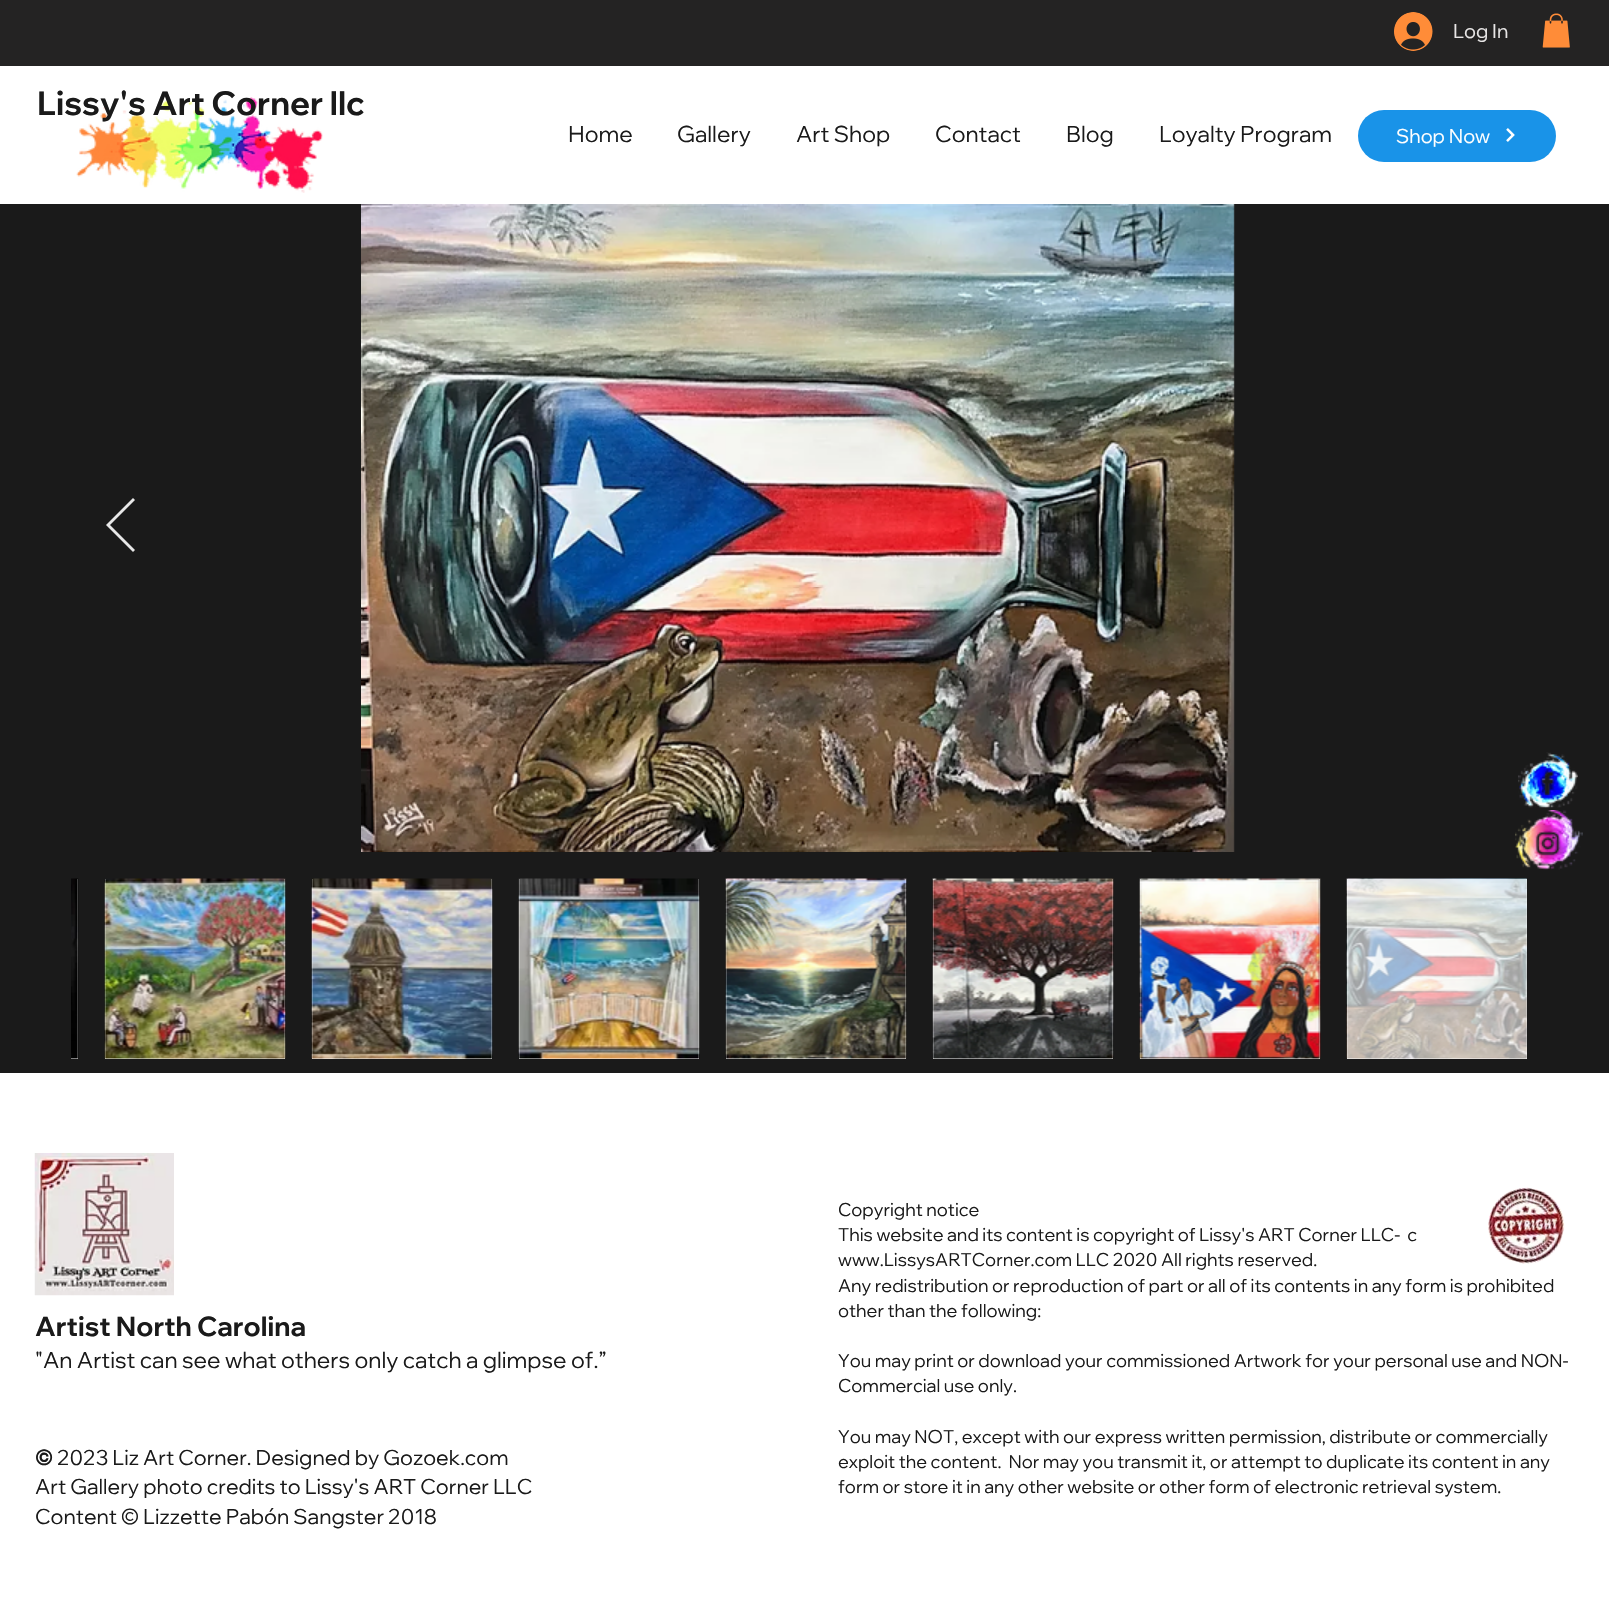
void draw(SkCanvas* canvas) {
  SkPaint paint;
  paint.setAntiAlias(true);
  auto face = [&](const char* family, int weight, float size, bool italic = false) {
    SkFontStyle style(weight, SkFontStyle::kNormal_Width,
      italic ? SkFontStyle::kItalic_Slant : SkFontStyle::kUpright_Slant);
    SkFont result(fontMgr->matchFamilyStyle(family, style), size);
    result.setSubpixel(true);
    return result;
  };
  auto paste = [&](const char* path, float x, float y, float w, float h) {
    auto image = SkImages::DeferredFromEncodedData(SkData::MakeFromFileName(path));
    canvas->drawImageRect(image, SkRect::MakeXYWH(x, y, w, h), SkSamplingOptions());
  };
  auto shape = [&](const char* data, bool evenOdd = false) {
    SkPath result = *SkParsePath::FromSVGString(data);
    if (evenOdd) result.setFillType(SkPathFillType::kEvenOdd);
    return result;
  };
  canvas->clear(0xff1a1a1a);
  paint.setColor(0xff242323);
  canvas->drawRect(SkRect::MakeXYWH(0, 0, 1609, 66), paint);
  paste("img/1.png", 1394, 12, 39, 39);
  paste("img/2.png", 1542, 13, 28, 35);
  paint.setColor(0xffffffff);
  canvas->drawRect(SkRect::MakeXYWH(0, 66, 1609, 138), paint);
  paste("img/3.png", 76, 97, 247, 96);
  paint.setColor(0xff1993e8);
  canvas->drawRoundRect(SkRect::MakeXYWH(1358, 110, 198, 52), 26, 26, paint);
  paste("img/4.png", 1506, 128, 9, 14);
  paint.setColor(0xffe8e8e8);
  canvas->drawPath(shape("M135 500L133 498L106 525L133 552L135 550L110 525Z"), paint);
  paste("img/5.png", 361, 204, 874, 648);
  paint.setColor(0xffffffff);
  canvas->drawRect(SkRect::MakeXYWH(71, 879, 7, 180), paint);
  paste("img/6.png", 71, 878, 8, 181);
  canvas->drawRect(SkRect::MakeXYWH(105, 879, 180, 180), paint);
  paste("img/7.png", 104, 878, 182, 181);
  canvas->drawRect(SkRect::MakeXYWH(312, 879, 180, 180), paint);
  paste("img/8.png", 311, 878, 182, 181);
  canvas->drawRect(SkRect::MakeXYWH(519, 879, 180, 180), paint);
  paste("img/9.png", 518, 878, 182, 181);
  canvas->drawRect(SkRect::MakeXYWH(726, 879, 180, 180), paint);
  paste("img/10.png", 725, 878, 182, 181);
  canvas->drawRect(SkRect::MakeXYWH(933, 879, 180, 180), paint);
  paste("img/11.png", 932, 878, 182, 181);
  canvas->drawRect(SkRect::MakeXYWH(1140, 879, 180, 180), paint);
  paste("img/12.png", 1139, 878, 182, 181);
  canvas->drawRect(SkRect::MakeXYWH(1347, 879, 180, 180), paint);
  paste("img/13.png", 1346, 878, 181, 181);
  paste("img/14.png", 1518, 752, 60, 56);
  paste("img/15.png", 1515, 810, 68, 60);
  canvas->drawRect(SkRect::MakeXYWH(0, 1073, 1609, 546), paint);
  paste("img/16.png", 34, 1153, 140, 143);
  paste("img/17.png", 1488, 1187, 77, 77);
  auto f0 = face("Wix Madefor Display", 400, 19.5f);
  paint.setColor(0xffe8e6e6);
  canvas->drawString("Log In", 1453, 38, f0, paint);
  auto f1 = face("Wix Madefor Display", 700, 33);
  paint.setColor(0xff1a1a1a);
  canvas->drawString("Lissy's Art Corner llc", 37, 115, f1, paint);
  auto f2 = face("Wix Madefor Display", 400, 22.5f);
  {
    const struct { const char* s; float x, y; } items[] = {
      {"Home", 568, 142},
      {"Gallery", 677, 142},
      {"Art Shop", 796, 142},
      {"Contact", 935, 142},
      {"Blog", 1066, 142},
      {"Loyalty Program", 1159, 142},
    };
    for (auto [s, x, y] : items) {
      canvas->drawString(s, x, y, f2, paint);
    }
  }
  paint.setColor(0xffffffff);
  canvas->drawString("Shop Now", 1396, 143, f0, paint);
  auto f3 = face("Wix Madefor Display", 700, 27);
  paint.setColor(0xff1a1a1a);
  canvas->drawString("Artist North Carolina", 35, 1336, f3, paint);
  canvas->drawString("\"An Artist can see what others only catch a glimpse of.”", 35, 1368, f2, paint);
  auto f4 = face("Questrial", 700, 22.5f);
  canvas->drawString("©", 35, 1465, f4, paint);
  auto f5 = face("Wix Madefor Display", 400, 21);
  {
    const struct { const char* s; float x, y; } items[] = {
      {"2023 Liz Art Corner. Designed by Gozoek.com", 57, 1465},
      {"Art Gallery photo credits to Lissy's ART Corner LLC", 35, 1494},
      {"Content © Lizzette Pabón Sangster 2018", 35, 1524},
    };
    for (auto [s, x, y] : items) {
      canvas->drawString(s, x, y, f5, paint);
    }
  }
  auto f6 = face("Wix Madefor Display", 400, 18);
  {
    const struct { const char* s; float x, y; } items[] = {
      {"Copyright notice", 838, 1216},
      {"This website and its content is copyright of Lissy's ART Corner LLC-  c", 838, 1241},
      {"www.LissysARTCorner.com LLC 2020 All rights reserved.", 838, 1266},
      {"Any redistribution or reproduction of part or all of its contents in any form is prohibited", 838, 1292},
      {"other than the following:", 838, 1317},
      {"You may print or download your commissioned Artwork for your personal use and NON-", 838, 1367},
      {"Commercial use only.", 838, 1392},
      {"You may NOT, except with our express written permission, distribute or commercially", 838, 1443},
      {"exploit the content.  Nor may you transmit it, or attempt to duplicate its content in any", 838, 1468},
      {"form or store it in any other website or other form of electronic retrieval system.", 838, 1493},
    };
    for (auto [s, x, y] : items) {
      canvas->drawString(s, x, y, f6, paint);
    }
  }
}
